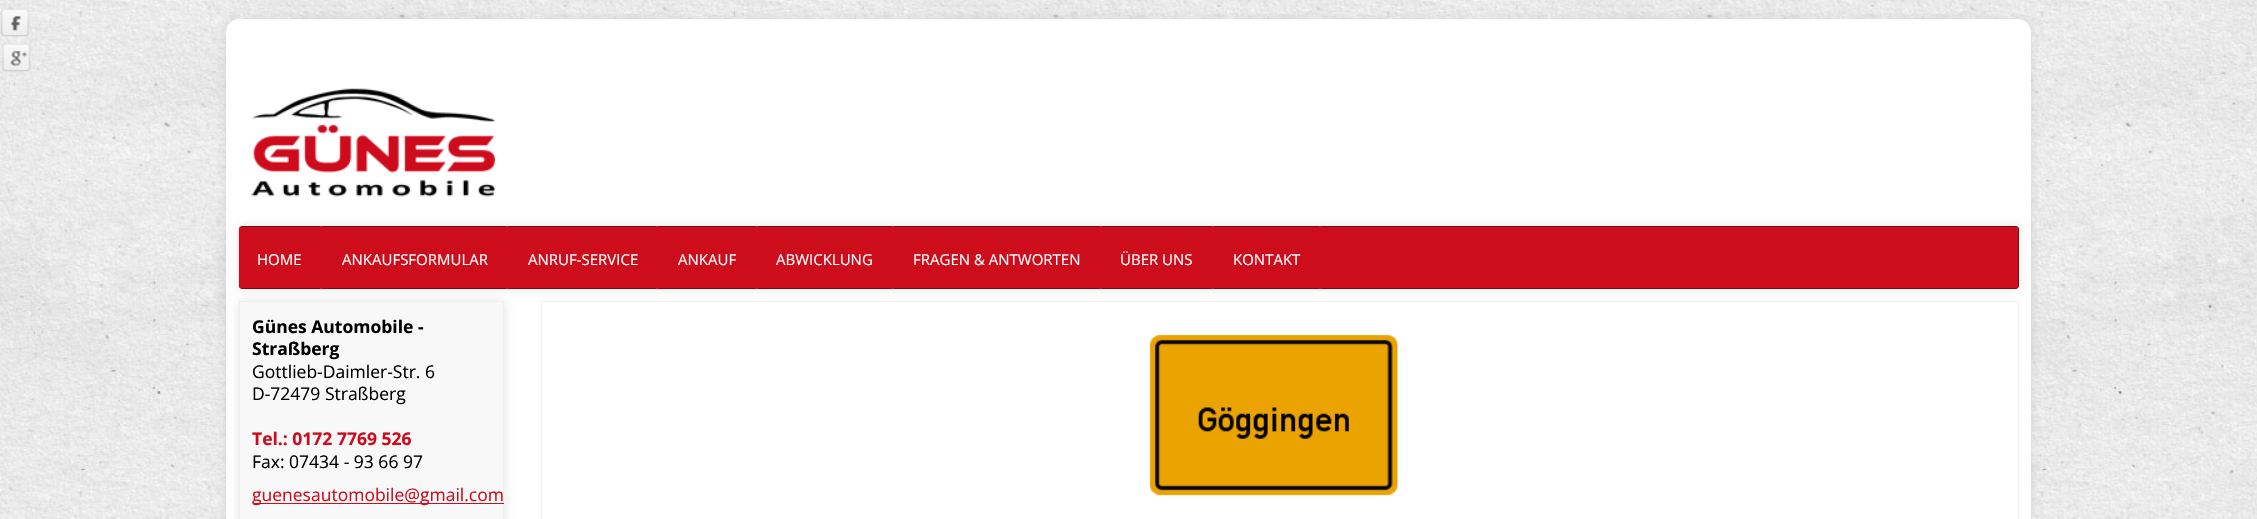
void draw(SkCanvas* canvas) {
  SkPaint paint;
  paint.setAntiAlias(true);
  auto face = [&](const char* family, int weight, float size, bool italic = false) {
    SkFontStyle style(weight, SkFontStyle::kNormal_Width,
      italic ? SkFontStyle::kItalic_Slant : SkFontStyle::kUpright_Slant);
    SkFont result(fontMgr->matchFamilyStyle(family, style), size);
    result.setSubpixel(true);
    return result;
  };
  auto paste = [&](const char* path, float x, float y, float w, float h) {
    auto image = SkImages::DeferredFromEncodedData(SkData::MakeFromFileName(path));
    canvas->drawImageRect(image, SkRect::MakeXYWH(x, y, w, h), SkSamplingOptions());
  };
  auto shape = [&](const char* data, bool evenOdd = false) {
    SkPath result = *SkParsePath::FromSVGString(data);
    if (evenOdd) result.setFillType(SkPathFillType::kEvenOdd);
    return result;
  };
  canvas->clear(0xffffffff);
  paste("img/1.png", 0, 0, 2257, 519);
  paste("img/2.png", 1, 8, 29, 29);
  paste("img/3.png", 2, 43, 29, 29);
  paint.setColor(0x1a000000);
  paint.setMaskFilter(SkMaskFilter::MakeBlur(kNormal_SkBlurStyle, 5));
  canvas->drawRoundRect(SkRect::MakeXYWH(226, 19, 1805, 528), 13, 13, paint);
  paint.setMaskFilter(nullptr);
  paint.setColor(0xffffffff);
  canvas->drawPath(shape("M239 19H2018C2025 19 2031 25 2031 32V226H226V32C226 25 232 19 239 19Z"), paint);
  paste("img/4.png", 251, 88, 245, 109);
  canvas->drawRect(SkRect::MakeXYWH(226, 226, 1805, 293), paint);
  paint.setColor(0x1a000000);
  paint.setMaskFilter(SkMaskFilter::MakeBlur(kNormal_SkBlurStyle, 5));
  canvas->drawRect(SkRect::MakeXYWH(239, 301, 265, 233), paint);
  paint.setMaskFilter(nullptr);
  paint.setColor(0xfff9f8f8);
  canvas->drawRect(SkRect::MakeXYWH(239.5f, 301.5f, 264, 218), paint);
  paint.setStroke(true);
  paint.setStrokeWidth(1);
  paint.setColor(0xffeeeeee);
  canvas->drawRect(SkRect::MakeXYWH(239.5f, 301.5f, 264, 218), paint);
  canvas->drawRect(SkRect::MakeXYWH(541.5f, 301.5f, 1477, 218), paint);
  paint.setStroke(false);
  paint.setColor(0x1a000000);
  paint.setMaskFilter(SkMaskFilter::MakeBlur(kNormal_SkBlurStyle, 5));
  canvas->drawRoundRect(SkRect::MakeXYWH(239, 226, 1780, 63), 4, 4, paint);
  paint.setMaskFilter(nullptr);
  paint.setColor(0xff070807);
  canvas->drawRoundRect(SkRect::MakeXYWH(239, 226, 1780, 63), 4, 4, paint);
  paste("img/5.png", 238, 226, 1781, 63);
  {
    const struct { float x, y, w, h; SkColor color; } items[] = {
      {320, 226, 3, 63, 0xffcd0d1c},
      {506, 226, 3, 63, 0xffcd0d1c},
      {656, 226, 3, 63, 0xffcd0d1c},
      {755, 226, 3, 63, 0xffcd0d1c},
      {891, 226, 3, 63, 0xffcd0d1c},
      {1099, 226, 3, 63, 0xffcd0d1c},
      {1211, 226, 3, 63, 0xffcd0d1c},
      {1319, 226, 3, 63, 0xffcd0d1c},
      {253, 503, 251, 1, 0xffcd0d1c},
    };
    for (auto [x, y, w, h, color] : items) {
      paint.setColor(color);
      canvas->drawRect(SkRect::MakeXYWH(x, y, w, h), paint);
    }
  }
  paste("img/6.png", 1149, 334, 249, 162);
  auto f0 = face("Open Sans", 400, 15);
  paint.setColor(0xffffffff);
  {
    const struct { const char* s; float x, y; } items[] = {
      {"HOME", 257, 265},
      {"ANKAUFSFORMULAR", 342, 265},
      {"ANRUF-SERVICE", 528, 265},
      {"ANKAUF", 678, 265},
      {"ABWICKLUNG", 776, 265},
      {"FRAGEN & ANTWORTEN", 913, 265},
      {"ÜBER UNS", 1120, 265},
      {"KONTAKT", 1233, 265},
    };
    for (auto [s, x, y] : items) {
      canvas->drawString(s, x, y, f0, paint);
    }
  }
  auto f1 = face("Open Sans", 700, 17.5f);
  paint.setColor(0xff000000);
  canvas->drawString("Günes Automobile -", 252, 333, f1, paint);
  canvas->drawString("Straßberg", 252, 355, f1, paint);
  auto f2 = face("Open Sans", 400, 17.5f);
  canvas->drawString("Gottlieb-Daimler-Str. 6", 252, 378, f2, paint);
  canvas->drawString("D-72479 Straßberg", 252, 400, f2, paint);
  paint.setColor(0xffcd0d1d);
  canvas->drawString("Tel.: 0172 7769 526", 252, 445, f1, paint);
  paint.setColor(0xff000000);
  canvas->drawString("Fax: 07434 - 93 66 97", 252, 468, f2, paint);
  paint.setColor(0xffcd0d1d);
  canvas->drawString("guenesautomobile@gmail.com", 252, 501, f2, paint);
}
